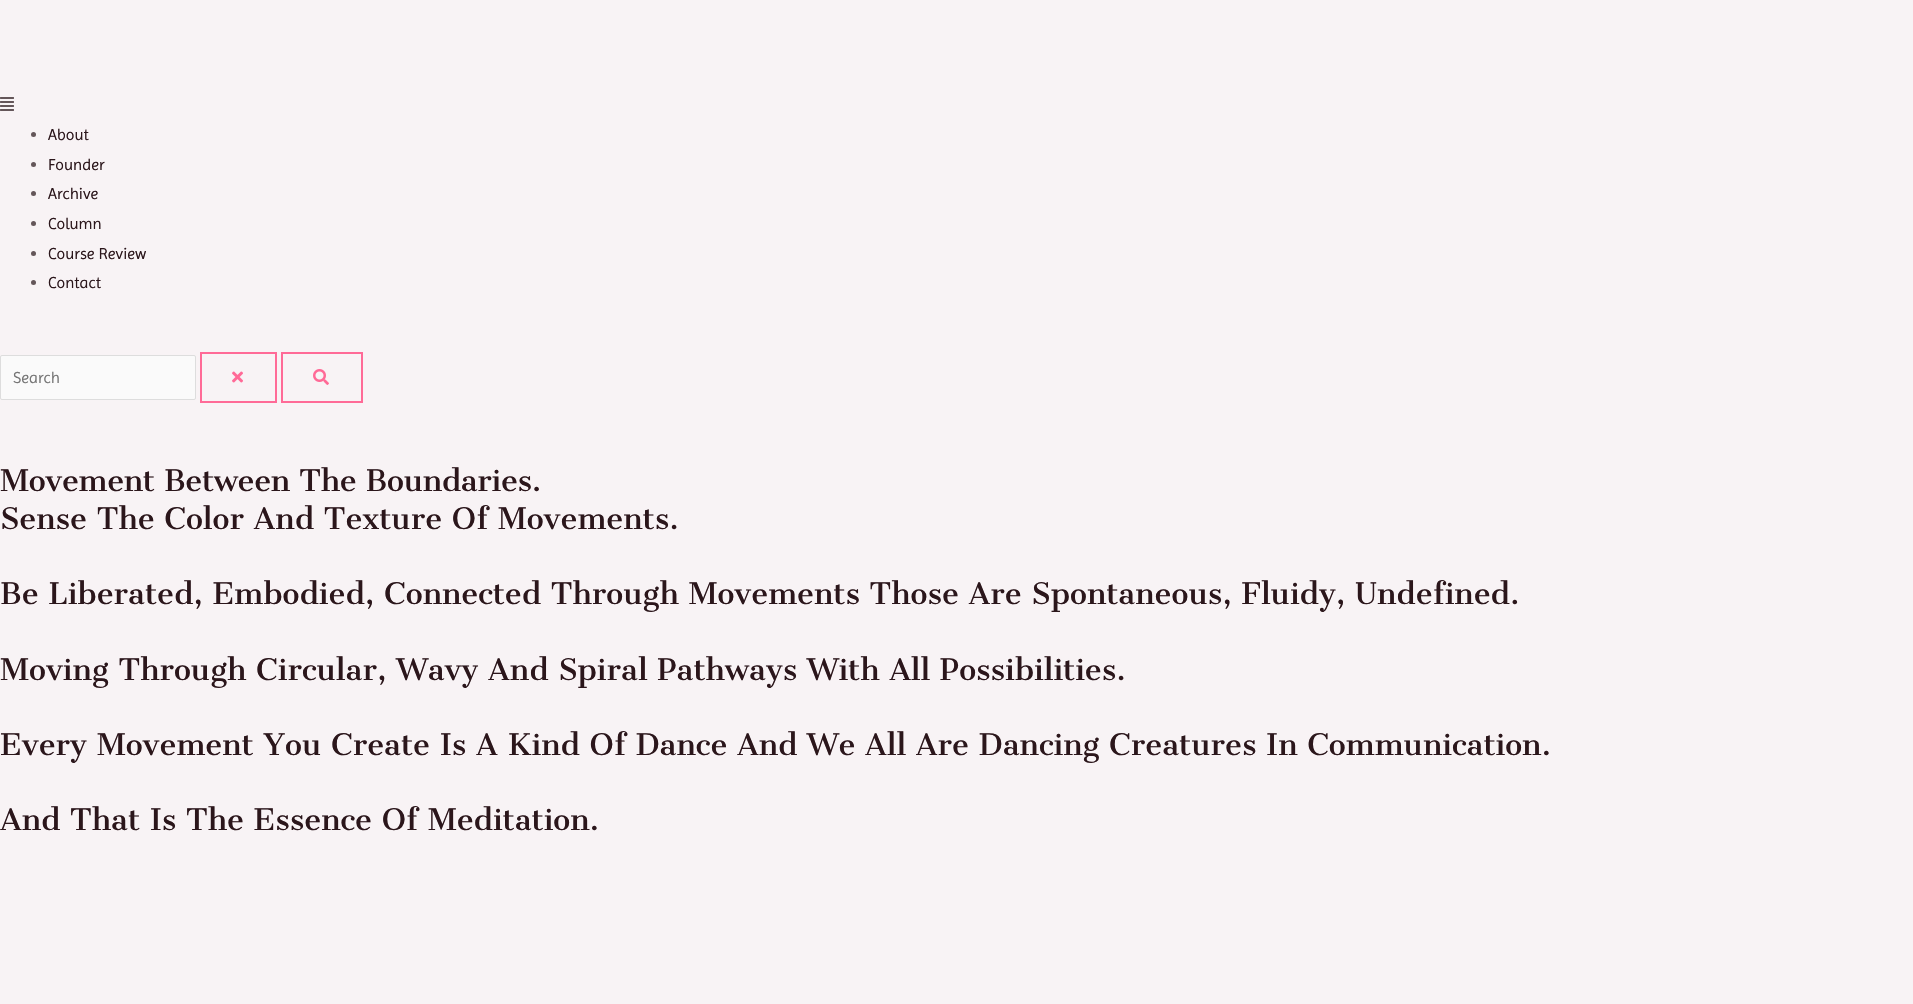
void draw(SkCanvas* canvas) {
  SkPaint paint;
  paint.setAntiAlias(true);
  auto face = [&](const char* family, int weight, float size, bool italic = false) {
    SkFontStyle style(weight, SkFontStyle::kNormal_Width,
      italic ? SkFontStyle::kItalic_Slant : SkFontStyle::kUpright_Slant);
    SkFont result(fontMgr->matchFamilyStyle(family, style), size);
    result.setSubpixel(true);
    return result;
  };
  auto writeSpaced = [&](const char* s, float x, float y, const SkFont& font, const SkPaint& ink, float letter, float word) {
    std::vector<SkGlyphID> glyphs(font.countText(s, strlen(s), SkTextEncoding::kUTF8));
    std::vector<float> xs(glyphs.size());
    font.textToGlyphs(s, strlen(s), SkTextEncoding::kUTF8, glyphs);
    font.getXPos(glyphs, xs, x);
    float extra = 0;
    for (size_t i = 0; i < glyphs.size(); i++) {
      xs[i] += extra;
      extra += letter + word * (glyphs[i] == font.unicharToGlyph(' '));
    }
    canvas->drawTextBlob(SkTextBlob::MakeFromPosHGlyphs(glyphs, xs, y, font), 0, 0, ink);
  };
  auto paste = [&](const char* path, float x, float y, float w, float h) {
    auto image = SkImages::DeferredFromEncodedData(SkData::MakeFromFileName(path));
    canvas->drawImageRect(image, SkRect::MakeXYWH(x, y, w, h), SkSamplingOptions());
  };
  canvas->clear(0xfff8f3f5);
  paste("img/1.png", 0, 97, 14, 14);
  paint.setColor(0xff645659);
  canvas->drawCircle(33.5f, 134.5f, 2.5f, paint);
  canvas->drawCircle(33.5f, 164.5f, 2.5f, paint);
  canvas->drawCircle(33.5f, 193.5f, 2.5f, paint);
  canvas->drawCircle(33.5f, 223.5f, 2.5f, paint);
  canvas->drawCircle(33.5f, 253.5f, 2.5f, paint);
  canvas->drawCircle(33.5f, 282.5f, 2.5f, paint);
  paint.setColor(0xfffafafa);
  canvas->drawRoundRect(SkRect::MakeXYWH(0.5f, 355.5f, 195, 44), 1.5f, 1.5f, paint);
  paint.setStroke(true);
  paint.setStrokeWidth(1);
  paint.setColor(0xffdddddd);
  canvas->drawRoundRect(SkRect::MakeXYWH(0.5f, 355.5f, 195, 44), 1.5f, 1.5f, paint);
  paint.setStrokeWidth(2);
  paint.setColor(0xffff6a97);
  canvas->drawRect(SkRect::MakeXYWH(201, 353, 75, 49), paint);
  paste("img/2.png", 232, 371, 11, 12);
  canvas->drawRect(SkRect::MakeXYWH(282, 353, 80, 49), paint);
  paste("img/3.png", 313, 369, 16, 16);
  auto f0 = face("Imprima", 400, 16);
  paint.setStroke(false);
  paint.setColor(0xff2b161b);
  {
    const struct { const char* s; float x, y; } items[] = {
      {"About", 48, 140},
      {"Founder", 48, 170},
      {"Archive", 48, 199},
      {"Column", 48, 229},
      {"Course Review", 48, 259},
      {"Contact", 48, 288},
    };
    for (auto [s, x, y] : items) {
      canvas->drawString(s, x, y, f0, paint);
    }
  }
  paint.setColor(0xff757575);
  canvas->drawString("Search", 13, 383, f0, paint);
  auto f1 = face("Cantata One", 400, 29);
  paint.setColor(0xff2b161b);
  writeSpaced("Movement Between The Boundaries.", 0, 491, f1, paint, -0.3f, 0);
  {
    const struct { const char* s; float x, y; } items[] = {
      {"Sense The Color And Texture Of Movements.", 0, 529},
      {"Be Liberated, Embodied, Connected Through Movements Those Are Spontaneous, Fluidy, Undefined.", 0, 604},
      {"Moving Through Circular, Wavy And Spiral Pathways With All Possibilities.", 0, 680},
      {"Every Movement You Create Is A Kind Of Dance And We All Are Dancing Creatures In Communication.", 0, 755},
      {"And That Is The Essence Of Meditation.", 0, 830},
    };
    for (auto [s, x, y] : items) {
      canvas->drawString(s, x, y, f1, paint);
    }
  }
}
